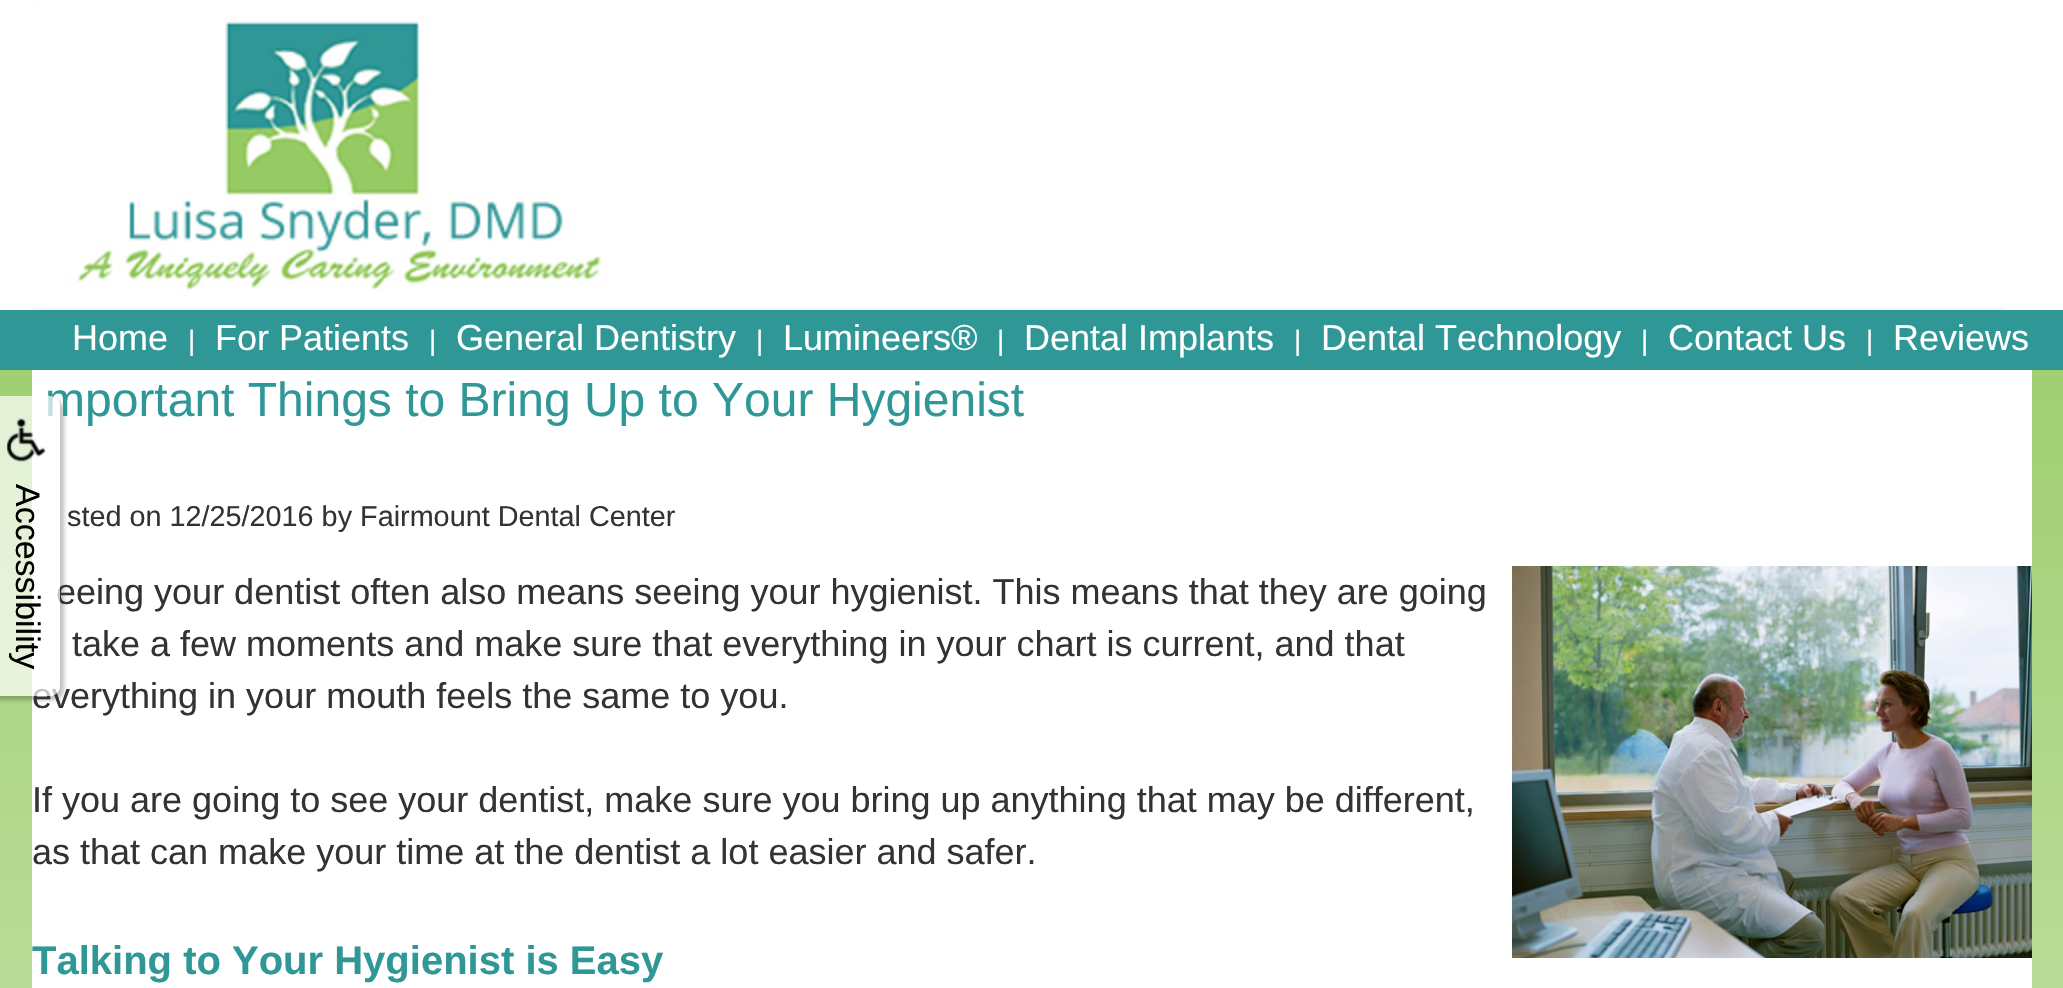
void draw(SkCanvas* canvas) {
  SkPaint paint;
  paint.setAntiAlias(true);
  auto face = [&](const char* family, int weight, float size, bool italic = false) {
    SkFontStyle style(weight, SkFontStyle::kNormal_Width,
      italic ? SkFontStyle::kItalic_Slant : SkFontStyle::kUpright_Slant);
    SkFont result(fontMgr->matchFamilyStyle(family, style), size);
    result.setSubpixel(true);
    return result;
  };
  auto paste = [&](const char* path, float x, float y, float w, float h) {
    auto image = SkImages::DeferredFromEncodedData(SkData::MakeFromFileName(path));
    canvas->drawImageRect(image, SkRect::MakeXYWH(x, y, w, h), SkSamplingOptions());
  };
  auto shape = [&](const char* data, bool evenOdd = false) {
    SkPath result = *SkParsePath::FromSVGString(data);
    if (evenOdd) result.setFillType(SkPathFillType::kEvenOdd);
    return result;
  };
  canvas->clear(0xffffffff);
  paste("img/1.png", 0, 370, 2063, 618);
  paste("img/2.png", 32, 0, 1974, 310);
  paint.setColor(0xff309797);
  canvas->drawRect(SkRect::MakeXYWH(0, 310, 2063, 60), paint);
  paint.setColor(0xffffffff);
  canvas->drawRect(SkRect::MakeXYWH(32, 370, 2000, 618), paint);
  canvas->save();
  canvas->clipPath(shape("M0 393H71V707H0ZM-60 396H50C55.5 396 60 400.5 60 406V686C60 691.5 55.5 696 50 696H-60Z", true), true);
  paint.setColor(0x40000000);
  paint.setMaskFilter(SkMaskFilter::MakeBlur(kNormal_SkBlurStyle, 2));
  canvas->drawRoundRect(SkRect::MakeXYWH(-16, 400, 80, 300), 10, 10, paint);
  paint.setMaskFilter(nullptr);
  canvas->restore();
  paste("img/4.png", 1512, 566, 520, 392);
  auto f0 = face("Liberation Sans", 400, 36);
  paint.setColor(0xffffffff);
  canvas->drawString("Home", 72, 350, f0, paint);
  auto f1 = face("Liberation Sans", 400, 28);
  canvas->drawString("|", 188, 350, f1, paint);
  canvas->drawString("For Patients", 215, 350, f0, paint);
  canvas->drawString("|", 429, 350, f1, paint);
  canvas->drawString("General Dentistry", 456, 350, f0, paint);
  canvas->drawString("|", 756, 350, f1, paint);
  canvas->drawString("Lumineers®", 783, 350, f0, paint);
  canvas->drawString("|", 997, 350, f1, paint);
  canvas->drawString("Dental Implants", 1024, 350, f0, paint);
  canvas->drawString("|", 1294, 350, f1, paint);
  canvas->drawString("Dental Technology", 1321, 350, f0, paint);
  canvas->drawString("|", 1641, 350, f1, paint);
  canvas->drawString("Contact Us", 1668, 350, f0, paint);
  canvas->drawString("|", 1866, 350, f1, paint);
  canvas->drawString("Reviews", 1893, 350, f0, paint);
  auto f2 = face("Liberation Sans", 400, 48);
  paint.setColor(0xff309797);
  canvas->drawString("mportant Things to Bring Up to Your Hygienist", 45, 416, f2, paint);
  auto f3 = face("Liberation Sans", 400, 28.8f);
  paint.setColor(0xff333333);
  canvas->drawString("sted on 12/25/2016 by Fairmount Dental Center", 67, 526, f3, paint);
  {
    const struct { const char* s; float x, y; } items[] = {
      {"eeing your dentist often also means seeing your hygienist. This means that they are going", 56, 604},
      {"take a few moments and make sure that everything in your chart is current, and that", 72, 656},
      {"everything in your mouth feels the same to you.", 32, 708},
    };
    for (auto [s, x, y] : items) {
      canvas->drawString(s, x, y, f0, paint);
    }
  }
  paint.setColor(0xb3ffffff);
  canvas->drawPath(shape("M-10 396H50C55.5 396 60 400.5 60 406V686C60 691.5 55.5 696 50 696H-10Z"), paint);
  auto f4 = face("Liberation Sans", 400, 34);
  paint.setColor(0xff000000);
  canvas->save();
  canvas->rotate(90, 16, 484);
  canvas->drawString("Accessibility", 16, 484, f4, paint);
  canvas->restore();
  paste("img/3.png", 6, 418, 40, 44);
  paint.setColor(0xff333333);
  canvas->drawString("If you are going to see your dentist, make sure you bring up anything that may be different,", 32, 812, f0, paint);
  canvas->drawString("as that can make your time at the dentist a lot easier and safer.", 32, 864, f0, paint);
  auto f5 = face("Liberation Sans", 700, 40);
  paint.setColor(0xff309797);
  canvas->drawString("Talking to Your Hygienist is Easy", 32, 974, f5, paint);
}
